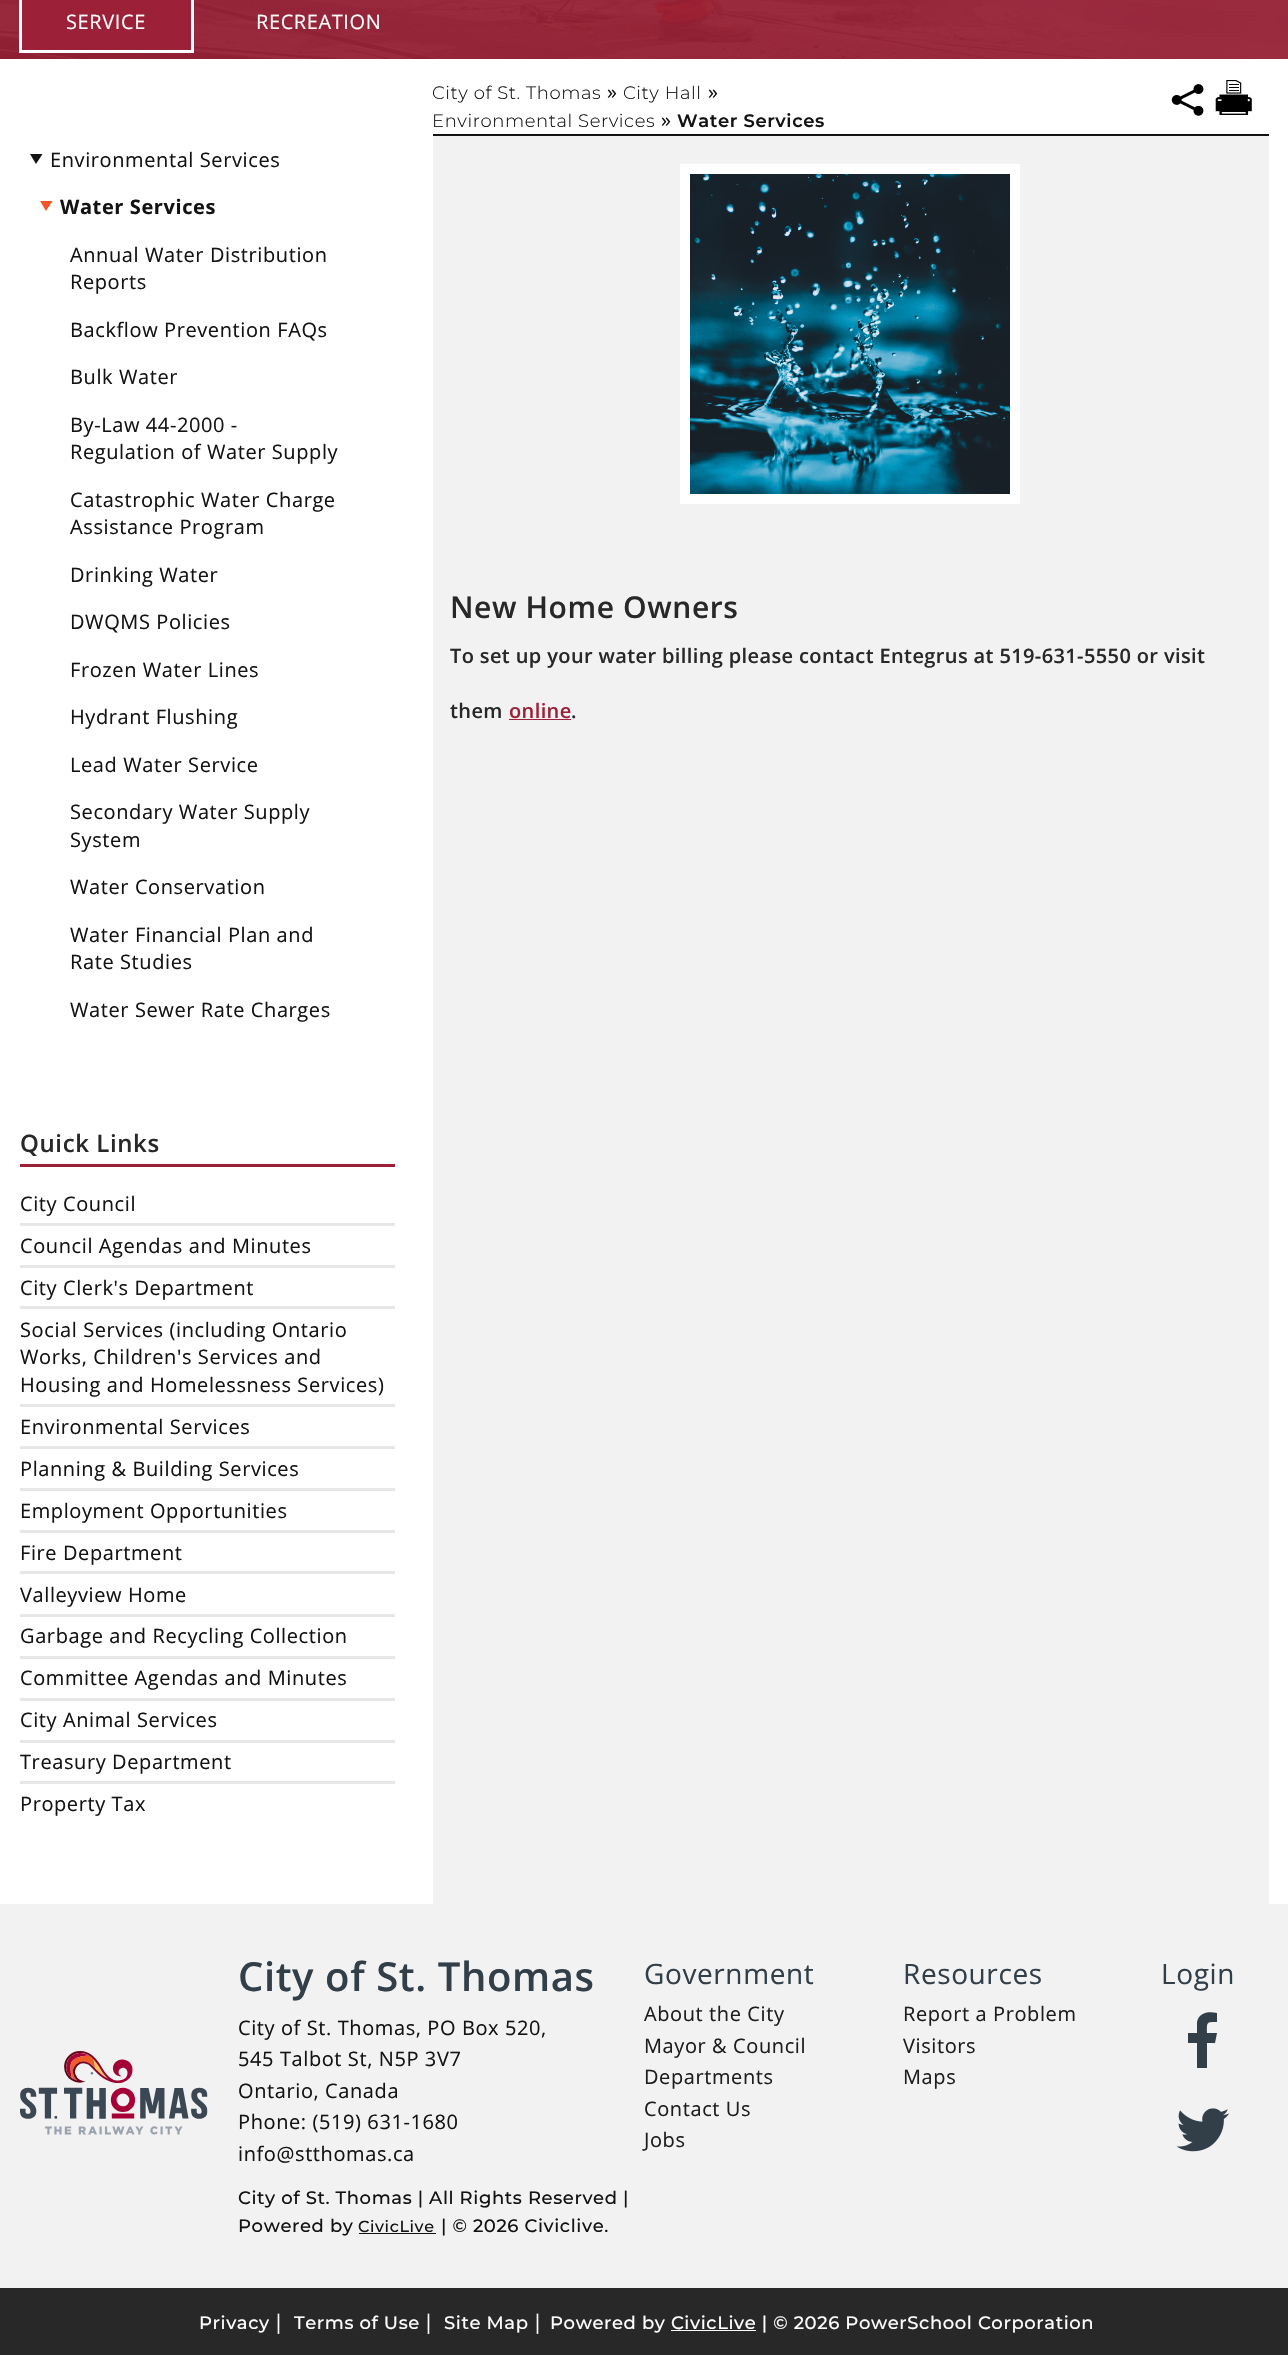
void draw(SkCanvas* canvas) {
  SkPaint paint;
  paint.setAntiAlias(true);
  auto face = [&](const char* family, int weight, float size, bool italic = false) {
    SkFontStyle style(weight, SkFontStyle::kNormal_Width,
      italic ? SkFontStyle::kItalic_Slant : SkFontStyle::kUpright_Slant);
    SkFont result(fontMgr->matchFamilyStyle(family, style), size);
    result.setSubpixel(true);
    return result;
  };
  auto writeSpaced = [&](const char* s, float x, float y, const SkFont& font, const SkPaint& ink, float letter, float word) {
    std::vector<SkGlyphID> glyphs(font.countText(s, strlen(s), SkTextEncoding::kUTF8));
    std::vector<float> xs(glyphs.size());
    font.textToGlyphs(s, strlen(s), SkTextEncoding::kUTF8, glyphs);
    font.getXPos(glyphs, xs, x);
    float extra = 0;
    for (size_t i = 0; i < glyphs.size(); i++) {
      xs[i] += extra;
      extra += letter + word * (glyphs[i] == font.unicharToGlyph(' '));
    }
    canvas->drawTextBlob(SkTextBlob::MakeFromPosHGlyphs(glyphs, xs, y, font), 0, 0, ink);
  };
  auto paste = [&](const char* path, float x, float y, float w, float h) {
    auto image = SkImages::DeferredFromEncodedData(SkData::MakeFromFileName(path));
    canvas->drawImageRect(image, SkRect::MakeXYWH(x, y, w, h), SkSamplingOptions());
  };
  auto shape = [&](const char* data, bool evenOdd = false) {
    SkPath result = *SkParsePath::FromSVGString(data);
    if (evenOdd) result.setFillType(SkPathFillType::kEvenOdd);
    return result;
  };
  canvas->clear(0xffffffff);
  paste("img/1.png", 0, 0, 1288, 59);
  paint.setColor(0xff9c2037);
  canvas->drawRect(SkRect::MakeXYWH(20.5f, -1.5f, 172, 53), paint);
  paint.setStroke(true);
  paint.setStrokeWidth(3);
  paint.setColor(0xffffffff);
  canvas->drawRect(SkRect::MakeXYWH(20.5f, -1.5f, 172, 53), paint);
  paint.setStroke(false);
  paint.setColor(0xff131314);
  canvas->drawRect(SkRect::MakeXYWH(433, 134, 836, 2), paint);
  paste("img/2.png", 1171, 84, 33, 32);
  paste("img/3.png", 1215, 80, 37, 35);
  canvas->drawPath(shape("M30 154H42.5L36 164Z"), paint);
  paint.setColor(0xfff05626);
  canvas->drawPath(shape("M40 201H52.5L46 211Z"), paint);
  {
    const struct { float x, y, w, h; SkColor color; } items[] = {
      {20, 1164, 375, 3, 0xff9c2037},
      {20, 1223, 375, 3, 0xffe7e7e8},
      {20, 1265, 375, 3, 0xffe7e7e8},
      {20, 1306, 375, 3, 0xffe7e7e8},
      {20, 1404, 375, 3, 0xffe7e7e8},
      {20, 1446, 375, 3, 0xffe7e7e8},
      {20, 1488, 375, 3, 0xffe7e7e8},
      {20, 1530, 375, 3, 0xffe7e7e8},
      {20, 1571, 375, 3, 0xffe7e7e8},
      {20, 1614, 375, 3, 0xffe7e7e8},
      {20, 1656, 375, 3, 0xffe7e7e8},
      {20, 1698, 375, 3, 0xffe7e7e8},
      {20, 1740, 375, 3, 0xffe7e7e8},
      {20, 1781, 375, 3, 0xffe7e7e8},
      {433, 136, 836, 1768, 0xfff2f2f3},
    };
    for (auto [x, y, w, h, color] : items) {
      paint.setColor(color);
      canvas->drawRect(SkRect::MakeXYWH(x, y, w, h), paint);
    }
  }
  paint.setStroke(true);
  paint.setStrokeWidth(10);
  paint.setColor(0xffffffff);
  canvas->drawRect(SkRect::MakeXYWH(685, 169, 330, 330), paint);
  paste("img/4.png", 690, 174, 320, 320);
  paint.setStroke(false);
  paint.setColor(0xff9c2037);
  canvas->drawRect(SkRect::MakeXYWH(509, 719, 62, 1), paint);
  paint.setColor(0xfff2f2f3);
  canvas->drawRect(SkRect::MakeXYWH(0, 1904, 1288, 384), paint);
  paste("img/5.png", 20, 2051, 188, 84);
  paint.setColor(0xff131314);
  canvas->drawRect(SkRect::MakeXYWH(359, 2233, 77, 1), paint);
  paint.setColor(0xff323f49);
  canvas->drawPath(shape("M1217 2013V2022C1206 2022 1207 2022 1207 2033H1217L1215 2043H1207V2068H1197V2043H1188V2033H1197V2022C1199 2012 1209 2011 1217 2013Z"), paint);
  paste("img/6.png", 1176, 2108, 54, 44);
  paint.setColor(0xff272827);
  canvas->drawRect(SkRect::MakeXYWH(0, 2288, 1288, 67), paint);
  paint.setColor(0xffffffff);
  canvas->drawRect(SkRect::MakeXYWH(671, 2330, 85, 1), paint);
  auto f0 = face("Open Sans", 400, 20);
  writeSpaced("SERVICE", 66, 29, f0, paint, 0.6f, 0);
  writeSpaced("RECREATION", 256, 29, f0, paint, 0.6f, 0);
  auto f1 = face("Montserrat", 300, 18);
  paint.setColor(0xff131314);
  writeSpaced("City of St. Thomas", 432, 99, f1, paint, 0.6f, 0);
  writeSpaced("»", 607, 99, f0, paint, 0.6f, 0);
  writeSpaced("City Hall", 623, 99, f1, paint, 0.6f, 0);
  writeSpaced("»", 708, 99, f0, paint, 0.6f, 0);
  writeSpaced("Environmental Services", 432, 127, f1, paint, 0.6f, 0);
  writeSpaced("»", 661, 127, f0, paint, 0.6f, 0);
  auto f2 = face("Montserrat", 600, 18);
  writeSpaced("Water Services", 677, 127, f2, paint, 0.6f, 0);
  writeSpaced("Environmental Services", 50, 167, f0, paint, 0.6f, 0);
  auto f3 = face("Open Sans", 700, 20);
  writeSpaced("Water Services", 60, 214, f3, paint, 0.6f, 0);
  {
    const struct { const char* s; float x, y; } items[] = {
      {"Annual Water Distribution", 70, 262},
      {"Reports", 70, 289},
      {"Backflow Prevention FAQs", 70, 337},
      {"Bulk Water", 70, 384},
      {"By-Law 44-2000 -", 70, 432},
      {"Regulation of Water Supply", 70, 459},
      {"Catastrophic Water Charge", 70, 507},
      {"Assistance Program", 70, 534},
      {"Drinking Water", 70, 582},
      {"DWQMS Policies", 70, 629},
      {"Frozen Water Lines", 70, 677},
      {"Hydrant Flushing", 70, 724},
      {"Lead Water Service", 70, 772},
      {"Secondary Water Supply", 70, 819},
      {"System", 70, 847},
      {"Water Conservation", 70, 894},
      {"Water Financial Plan and", 70, 942},
      {"Rate Studies", 70, 969},
      {"Water Sewer Rate Charges", 70, 1017},
    };
    for (auto [s, x, y] : items) {
      writeSpaced(s, x, y, f0, paint, 0.6f, 0);
    }
  }
  auto f4 = face("Open Sans", 600, 24);
  paint.setColor(0xff282828);
  writeSpaced("Quick Links", 20, 1152, f4, paint, 0.6f, 0);
  paint.setColor(0xff131314);
  {
    const struct { const char* s; float x, y; } items[] = {
      {"City Council", 20, 1211},
      {"Council Agendas and Minutes", 20, 1253},
      {"City Clerk's Department", 20, 1295},
      {"Social Services (including Ontario", 20, 1337},
      {"Works, Children's Services and", 20, 1364},
      {"Housing and Homelessness Services)", 20, 1392},
      {"Environmental Services", 20, 1434},
      {"Planning & Building Services", 20, 1476},
      {"Employment Opportunities", 20, 1518},
      {"Fire Department", 20, 1560},
      {"Valleyview Home", 20, 1602},
      {"Garbage and Recycling Collection", 20, 1643},
      {"Committee Agendas and Minutes", 20, 1685},
      {"City Animal Services", 20, 1727},
      {"Treasury Department", 20, 1769},
      {"Property Tax", 20, 1811},
    };
    for (auto [s, x, y] : items) {
      writeSpaced(s, x, y, f0, paint, 0.6f, 0);
    }
  }
  auto f5 = face("Open Sans", 600, 30);
  paint.setColor(0xff282828);
  writeSpaced("New Home Owners", 450, 618, f5, paint, 0.6f, 0);
  auto f6 = face("Open Sans", 600, 20);
  writeSpaced("To set up your water billing please contact Entegrus at 519-631-5550 or visit", 450, 663, f6, paint, 0.38f, 0);
  writeSpaced("them", 450, 718, f6, paint, 0.38f, 0);
  paint.setColor(0xff9c2037);
  writeSpaced("online", 509, 718, f6, paint, 0.38f, 0);
  paint.setColor(0xff282828);
  writeSpaced(".", 571, 718, f6, paint, 0.38f, 0);
  auto f7 = face("Open Sans", 600, 40);
  paint.setColor(0xff323f49);
  writeSpaced("City of St. Thomas", 238, 1991, f7, paint, 0.6f, 0);
  paint.setColor(0xff131314);
  {
    const struct { const char* s; float x, y; } items[] = {
      {"City of St. Thomas, PO Box 520,", 238, 2035},
      {"545 Talbot St, N5P 3V7", 238, 2066},
      {"Ontario, Canada", 238, 2098},
      {"Phone: (519) 631-1680", 238, 2129},
      {"info@stthomas.ca", 238, 2161},
    };
    for (auto [s, x, y] : items) {
      writeSpaced(s, x, y, f0, paint, 0.6f, 0);
    }
  }
  auto f8 = face("Montserrat", 500, 18);
  writeSpaced("City of St. Thomas | All Rights Reserved |", 238, 2204, f8, paint, 0.6f, 0);
  writeSpaced("Powered by", 238, 2232, f8, paint, 0.6f, 0);
  auto f9 = face("Montserrat", 500, 16);
  writeSpaced("CivicLive", 358, 2232, f9, paint, 0.6f, 0);
  writeSpaced("| © 2026 Civiclive.", 441, 2232, f8, paint, 0.6f, 0);
  auto f10 = face("Open Sans", 400, 28);
  paint.setColor(0xff323f49);
  writeSpaced("Government", 644, 1984, f10, paint, 0.6f, 0);
  paint.setColor(0xff1d1d1d);
  {
    const struct { const char* s; float x, y; } items[] = {
      {"About the City", 644, 2021},
      {"Mayor & Council", 644, 2053},
      {"Departments", 644, 2084},
      {"Contact Us", 644, 2116},
      {"Jobs", 644, 2147},
    };
    for (auto [s, x, y] : items) {
      writeSpaced(s, x, y, f0, paint, 0.6f, 0);
    }
  }
  paint.setColor(0xff323f49);
  writeSpaced("Resources", 903, 1984, f10, paint, 0.6f, 0);
  paint.setColor(0xff1d1d1d);
  {
    const struct { const char* s; float x, y; } items[] = {
      {"Report a Problem", 903, 2021},
      {"Visitors", 903, 2053},
      {"Maps", 903, 2084},
    };
    for (auto [s, x, y] : items) {
      writeSpaced(s, x, y, f0, paint, 0.6f, 0);
    }
  }
  paint.setColor(0xff323f49);
  writeSpaced("Login", 1161, 1984, f10, paint, 0.6f, 0);
  paint.setColor(0xffffffff);
  writeSpaced("Privacy", 199, 2329, f8, paint, 0.6f, 0);
  writeSpaced("|", 273, 2329, f0, paint, 0.6f, 0);
  writeSpaced("Terms of Use", 294, 2329, f8, paint, 0.6f, 0);
  writeSpaced("|", 423, 2329, f0, paint, 0.6f, 0);
  writeSpaced("Site Map", 444, 2329, f8, paint, 0.6f, 0);
  writeSpaced("|", 532, 2329, f0, paint, 0.6f, 0);
  writeSpaced("Powered by CivicLive | © 2026 PowerSchool Corporation", 550, 2329, f8, paint, 0.6f, 0);
}
